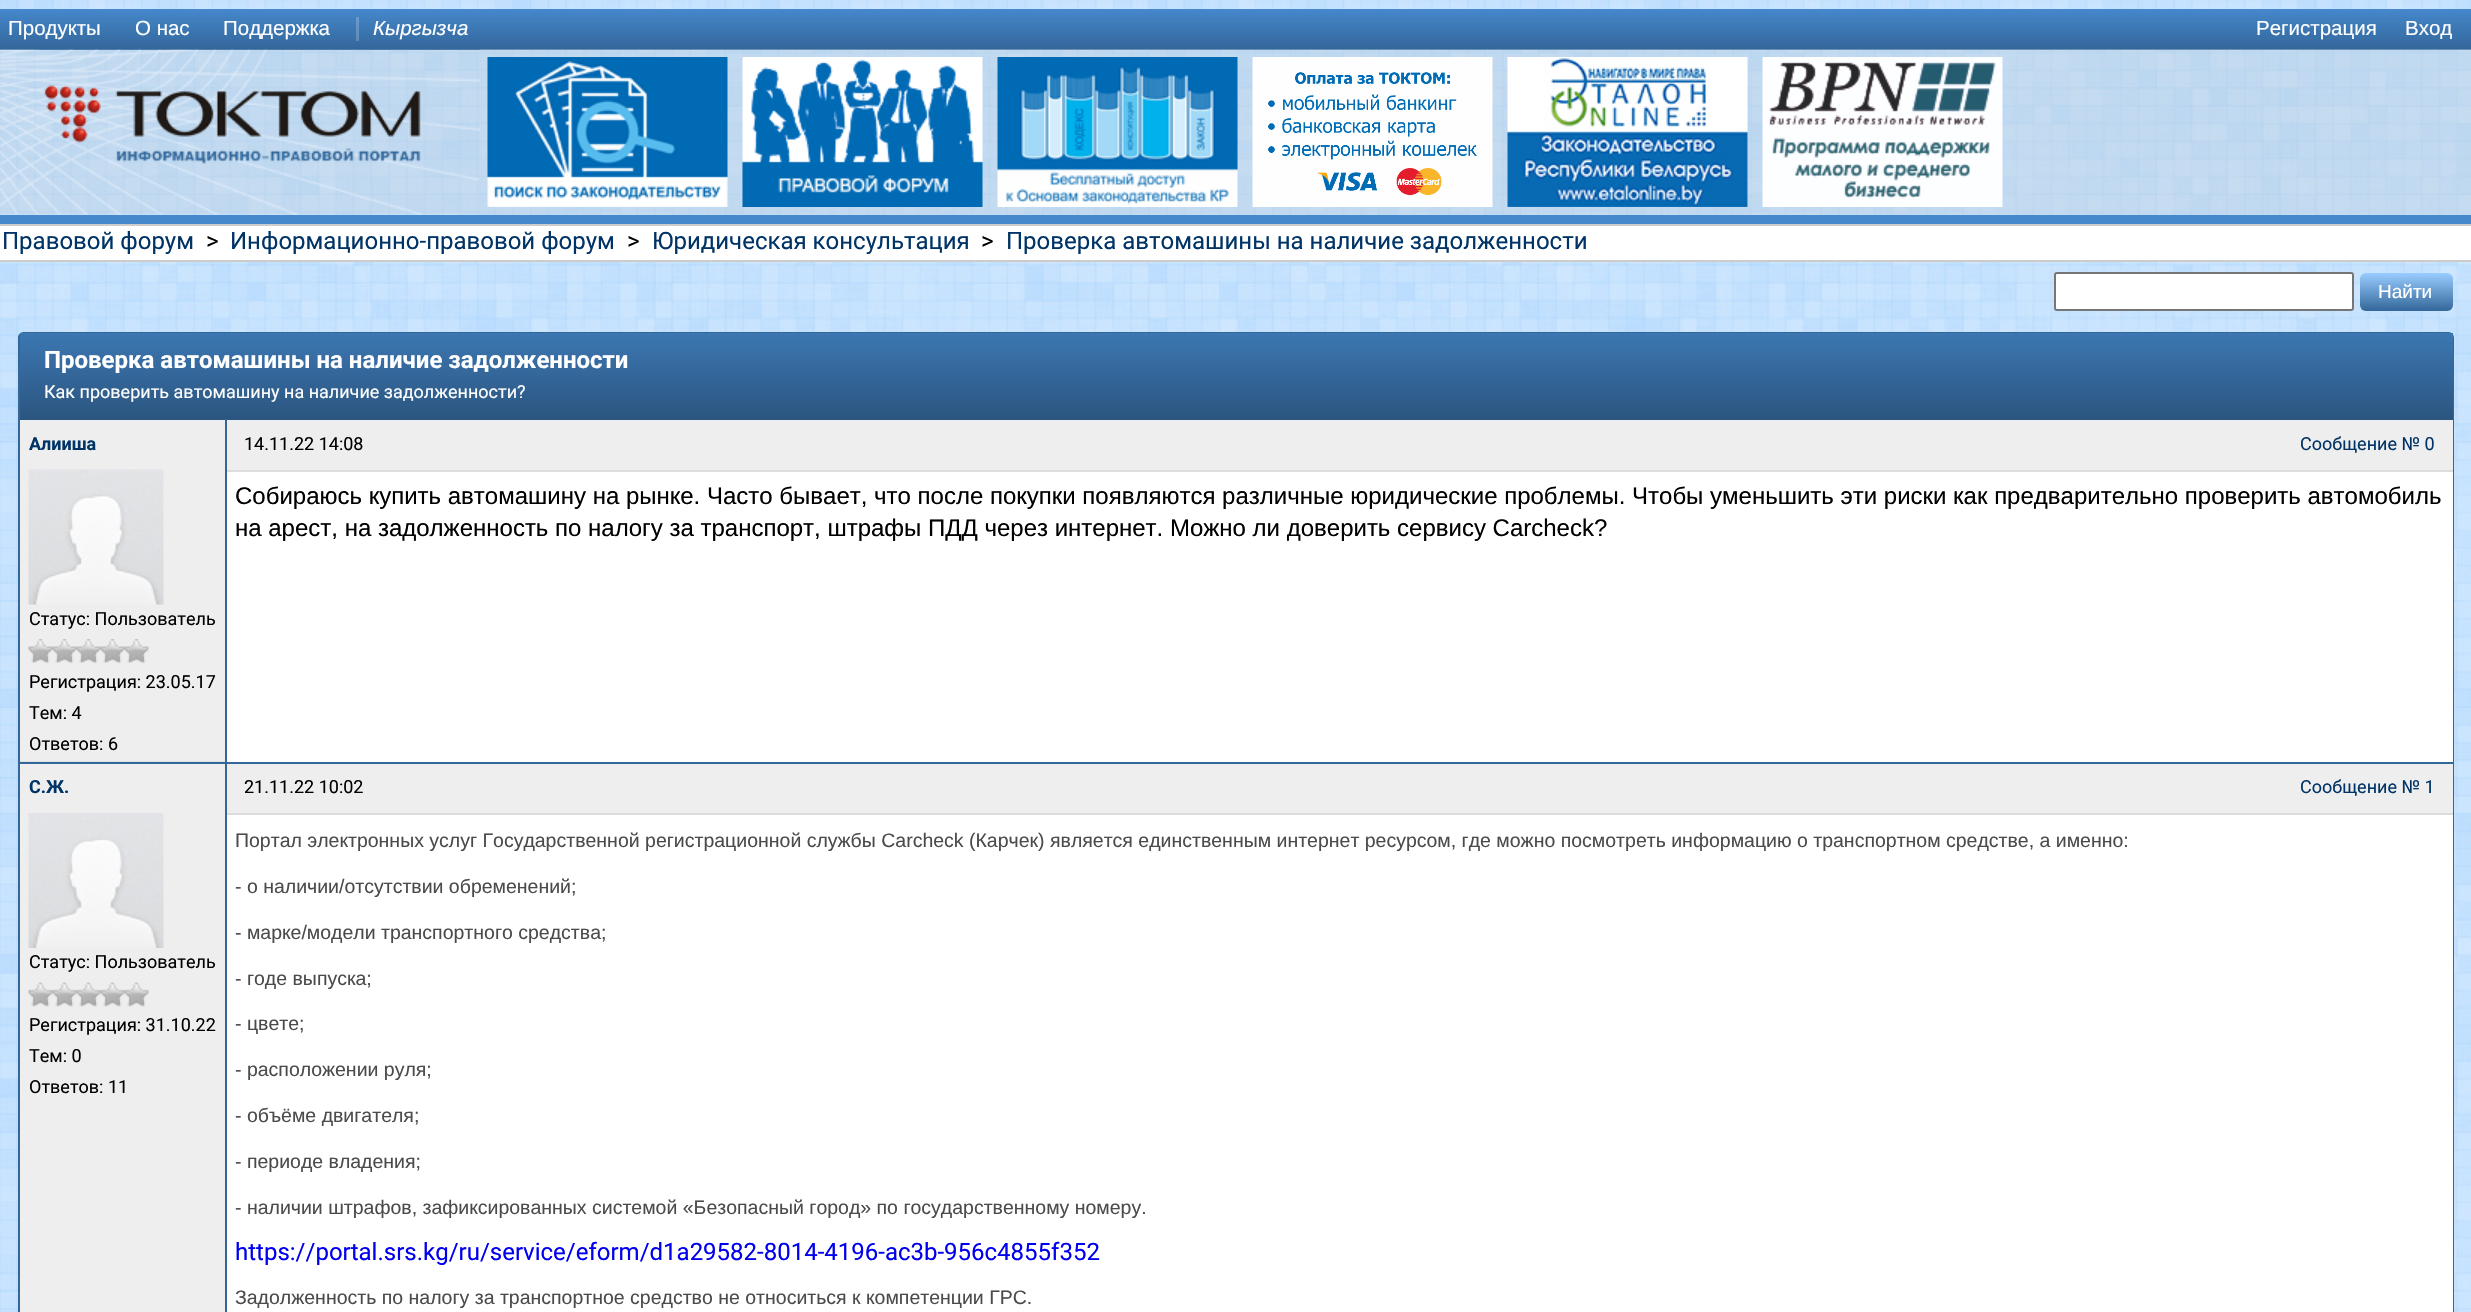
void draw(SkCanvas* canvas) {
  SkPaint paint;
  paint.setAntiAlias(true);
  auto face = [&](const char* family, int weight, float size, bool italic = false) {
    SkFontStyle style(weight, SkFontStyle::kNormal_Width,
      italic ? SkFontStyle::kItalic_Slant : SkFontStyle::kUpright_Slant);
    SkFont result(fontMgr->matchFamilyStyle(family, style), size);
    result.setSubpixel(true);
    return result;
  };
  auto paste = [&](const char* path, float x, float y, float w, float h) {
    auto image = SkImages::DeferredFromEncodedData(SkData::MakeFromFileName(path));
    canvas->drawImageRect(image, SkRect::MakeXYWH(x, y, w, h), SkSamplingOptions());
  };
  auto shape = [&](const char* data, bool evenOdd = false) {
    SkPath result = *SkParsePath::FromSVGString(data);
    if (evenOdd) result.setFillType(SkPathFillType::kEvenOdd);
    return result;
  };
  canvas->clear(0xffffffff);
  paste("img/1.png", 0, 0, 2471, 1312);
  paint.setColor(0xff4588cc);
  canvas->drawRect(SkRect::MakeXYWH(0, 215, 2471, 9), paint);
  {
    const SkColor colors[] = {0xff4588cc, 0xff336699};
    const float stops[] = {0, 1};
    const SkPoint ends[] = {{1236, 9}, {1236, 50}};
    paint.setShader(SkGradientShader::MakeLinear(ends, colors, stops, 2, SkTileMode::kClamp));
    paint.setAlpha(255);
  }
  canvas->drawRect(SkRect::MakeXYWH(0, 9, 2471, 41), paint);
  paint.setShader(nullptr);
  paint.setColor(0x33ffffff);
  canvas->drawRect(SkRect::MakeXYWH(356, 17, 3, 24), paint);
  paste("img/2.png", 0, 49, 480, 166);
  paste("img/3.png", 44, 85, 377, 79);
  paint.setColor(0x66bccddc);
  canvas->drawRect(SkRect::MakeXYWH(480, 49, 1991, 166), paint);
  paste("img/4.png", 487, 57, 241, 150);
  paste("img/5.png", 742, 57, 241, 150);
  paste("img/6.png", 997, 57, 241, 150);
  paste("img/7.png", 1252, 57, 241, 150);
  paste("img/8.png", 1507, 57, 241, 150);
  paste("img/9.png", 1762, 57, 241, 150);
  {
    const struct { float x, y, w, h; SkColor color; } items[] = {
      {0, 226, 2471, 34, 0xffffffff},
      {0, 224, 2471, 2, 0xffcccccc},
      {0, 260, 2471, 2, 0xffcccccc},
    };
    for (auto [x, y, w, h, color] : items) {
      paint.setColor(color);
      canvas->drawRect(SkRect::MakeXYWH(x, y, w, h), paint);
    }
  }
  paint.setColor(0xffffffff);
  canvas->drawRoundRect(SkRect::MakeXYWH(2055, 273, 298, 37), 2, 2, paint);
  paint.setStroke(true);
  paint.setStrokeWidth(2);
  paint.setColor(0xff767676);
  canvas->drawRoundRect(SkRect::MakeXYWH(2055, 273, 298, 37), 2, 2, paint);
  paint.setStroke(false);
  {
    const SkColor colors[] = {0xff99ccff, 0xff336699};
    const float stops[] = {0, 1};
    const SkPoint ends[] = {{2406, 273}, {2406, 311}};
    paint.setShader(SkGradientShader::MakeLinear(ends, colors, stops, 2, SkTileMode::kClamp));
    paint.setAlpha(255);
  }
  canvas->drawRoundRect(SkRect::MakeXYWH(2360, 273, 93, 38), 6, 6, paint);
  paint.setShader(nullptr);
  paint.setColor(0xff336699);
  canvas->drawPath(shape("M24 332H2448C2451 332 2454 334 2454 338V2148H18V338C18 334 21 332 24 332ZM24 333H2448C2450 333 2452 335 2452 338V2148H20V338C20 335 22 333 24 333Z", true), paint);
  {
    const SkColor colors[] = {0xff3c77b2, 0xff2b557f};
    const float stops[] = {0, 1};
    const SkPoint ends[] = {{1236, 333}, {1236, 420}};
    paint.setShader(SkGradientShader::MakeLinear(ends, colors, stops, 2, SkTileMode::kClamp));
    paint.setAlpha(255);
  }
  canvas->drawRect(SkRect::MakeXYWH(20, 333, 2433, 87), paint);
  paint.setShader(nullptr);
  {
    const struct { float x, y, w, h; SkColor color; } items[] = {
      {20, 420, 205, 341, 0xffeeeeee},
      {225, 761, 2228, 1, 0xffffffff},
      {20, 761, 207, 1, 0xffdddddd},
      {225, 419, 2, 343, 0xff336699},
    };
    for (auto [x, y, w, h, color] : items) {
      paint.setColor(color);
      canvas->drawRect(SkRect::MakeXYWH(x, y, w, h), paint);
    }
  }
  paste("img/10.png", 28, 469, 136, 136);
  paste("img/11.png", 28, 639, 25, 24);
  paste("img/12.png", 52, 639, 25, 24);
  paste("img/12.png", 76, 639, 25, 24);
  paste("img/12.png", 100, 639, 25, 24);
  paste("img/12.png", 124, 639, 25, 24);
  {
    const struct { float x, y, w, h; SkColor color; } items[] = {
      {227, 472, 2226, 289, 0xffffffff},
      {227, 420, 2226, 50, 0xffeeeeee},
      {227, 470, 2226, 2, 0xffdddddd},
      {225, 762, 2, 550, 0xff336699},
      {20, 762, 2434, 2, 0xff336699},
      {20, 764, 205, 548, 0xffeeeeee},
    };
    for (auto [x, y, w, h, color] : items) {
      paint.setColor(color);
      canvas->drawRect(SkRect::MakeXYWH(x, y, w, h), paint);
    }
  }
  paste("img/13.png", 28, 813, 136, 135);
  paste("img/14.png", 28, 982, 25, 25);
  paste("img/15.png", 52, 982, 25, 25);
  paste("img/15.png", 76, 982, 25, 25);
  paste("img/15.png", 100, 982, 25, 25);
  paste("img/15.png", 124, 982, 25, 25);
  {
    const struct { float x, y, w, h; SkColor color; } items[] = {
      {227, 815, 2226, 497, 0xffffffff},
      {227, 764, 2226, 49, 0xffeeeeee},
      {227, 813, 2226, 2, 0xffdddddd},
    };
    for (auto [x, y, w, h, color] : items) {
      paint.setColor(color);
      canvas->drawRect(SkRect::MakeXYWH(x, y, w, h), paint);
    }
  }
  auto f0 = face("Liberation Sans", 400, 20.5f);
  paint.setColor(0xffffffff);
  {
    const struct { const char* s; float x, y; } items[] = {
      {"Продукты", 8, 35},
      {"О нас", 135, 35},
      {"Поддержка", 223, 35},
    };
    for (auto [s, x, y] : items) {
      canvas->drawString(s, x, y, f0, paint);
    }
  }
  auto f1 = face("Liberation Sans", 400, 20.5f, true);
  canvas->drawString("Кыргызча", 373, 35, f1, paint);
  canvas->drawString("Регистрация", 2256, 35, f0, paint);
  canvas->drawString("Вход", 2405, 35, f0, paint);
  auto f2 = face("Roboto", 400, 24);
  paint.setColor(0xff003366);
  canvas->drawString("Правовой форум", 2, 249, f2, paint);
  paint.setColor(0xff000000);
  canvas->drawString(">", 206, 249, f2, paint);
  paint.setColor(0xff003366);
  canvas->drawString("Информационно-правовой форум", 230, 249, f2, paint);
  paint.setColor(0xff000000);
  canvas->drawString(">", 627, 249, f2, paint);
  paint.setColor(0xff003366);
  canvas->drawString("Юридическая консультация", 652, 249, f2, paint);
  paint.setColor(0xff000000);
  canvas->drawString(">", 981, 249, f2, paint);
  paint.setColor(0xff003366);
  canvas->drawString("Проверка автомашины на наличие задолженности", 1006, 249, f2, paint);
  auto f3 = face("Liberation Sans", 400, 19);
  paint.setColor(0xffffffff);
  canvas->drawString("Найти", 2378, 298, f3, paint);
  auto f4 = face("Roboto", 700, 24);
  canvas->drawString("Проверка автомашины на наличие задолженности", 44, 368, f4, paint);
  auto f5 = face("Roboto", 400, 18);
  canvas->drawString("Как проверить автомашину на наличие задолженности?", 44, 398, f5, paint);
  auto f6 = face("Roboto", 700, 18);
  paint.setColor(0xff003366);
  canvas->drawString("Алииша", 29, 450, f6, paint);
  paint.setColor(0xff000000);
  {
    const struct { const char* s; float x, y; } items[] = {
      {"Статус: Пользователь", 29, 625},
      {"Регистрация: 23.05.17", 29, 688},
      {"Тем: 4", 29, 719},
      {"Ответов: 6", 29, 750},
      {"14.11.22 14:08", 244, 450},
    };
    for (auto [s, x, y] : items) {
      canvas->drawString(s, x, y, f5, paint);
    }
  }
  paint.setColor(0xff003366);
  canvas->drawString("Сообщение № 0", 2300, 450, f5, paint);
  auto f7 = face("Liberation Sans", 400, 24);
  paint.setColor(0xff000000);
  canvas->drawString("Собираюсь купить автомашину на рынке. Часто бывает, что после покупки появляются различные юридические проблемы. Чтобы уменьшить эти риски как предварительно проверить автомобиль", 235, 504, f7, paint);
  canvas->drawString("на арест, на задолженность по налогу за транспорт, штрафы ПДД через интернет. Можно ли доверить сервису Carcheck?", 235, 536, f7, paint);
  paint.setColor(0xff003366);
  canvas->drawString("С.Ж.", 29, 793, f6, paint);
  paint.setColor(0xff000000);
  {
    const struct { const char* s; float x, y; } items[] = {
      {"Статус: Пользователь", 29, 968},
      {"Регистрация: 31.10.22", 29, 1031},
      {"Тем: 0", 29, 1062},
      {"Ответов: 11", 29, 1093},
      {"21.11.22 10:02", 244, 793},
    };
    for (auto [s, x, y] : items) {
      canvas->drawString(s, x, y, f5, paint);
    }
  }
  paint.setColor(0xff003366);
  canvas->drawString("Сообщение № 1", 2300, 793, f5, paint);
  auto f8 = face("Liberation Sans", 400, 19.5f);
  paint.setColor(0xff4b4b4b);
  {
    const struct { const char* s; float x, y; } items[] = {
      {"Портал электронных услуг Государственной регистрационной службы Carcheck (Карчек) является единственным интернет ресурсом, где можно посмотреть информацию о транспортном средстве, а именно:", 235, 847},
      {"- о наличии/отсутствии обременений;", 235, 893},
      {"- марке/модели транспортного средства;", 235, 939},
      {"- годе выпуска;", 235, 985},
      {"- цвете;", 235, 1030},
      {"- расположении руля;", 235, 1076},
      {"- объёме двигателя;", 235, 1122},
      {"- периоде владения;", 235, 1168},
      {"- наличии штрафов, зафиксированных системой «Безопасный город» по государственному номеру.", 235, 1214},
    };
    for (auto [s, x, y] : items) {
      canvas->drawString(s, x, y, f8, paint);
    }
  }
  paint.setColor(0xff0000ee);
  canvas->drawString("https://portal.srs.kg/ru/service/eform/d1a29582-8014-4196-ac3b-956c4855f352", 235, 1260, f2, paint);
  paint.setColor(0xff4b4b4b);
  canvas->drawString("Задолженность по налогу за транспортное средство не относиться к компетенции ГРС.", 235, 1304, f8, paint);
}
